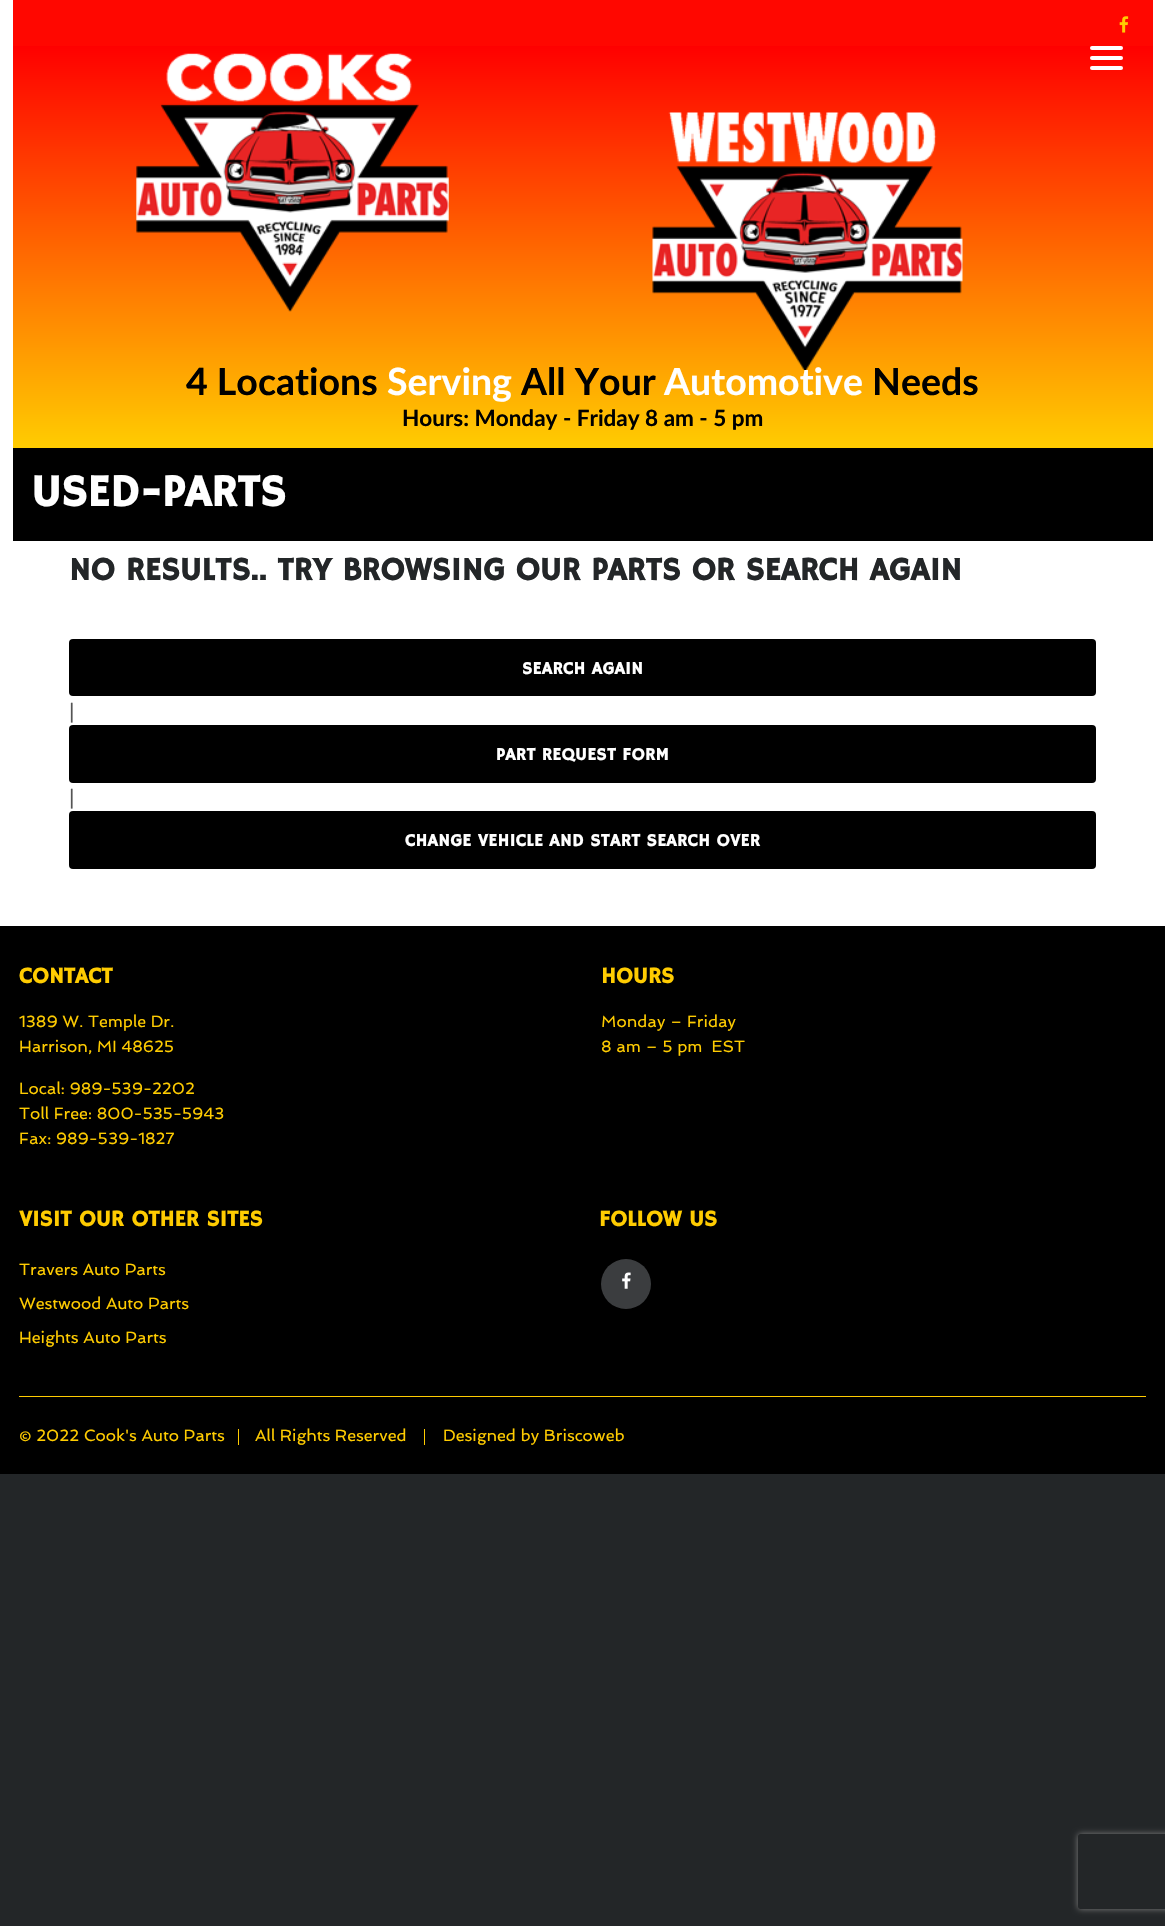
void draw(SkCanvas* canvas) {
  SkPaint paint;
  paint.setAntiAlias(true);
  auto face = [&](const char* family, int weight, float size, bool italic = false) {
    SkFontStyle style(weight, SkFontStyle::kNormal_Width,
      italic ? SkFontStyle::kItalic_Slant : SkFontStyle::kUpright_Slant);
    SkFont result(fontMgr->matchFamilyStyle(family, style), size);
    result.setSubpixel(true);
    return result;
  };
  auto writeSpaced = [&](const char* s, float x, float y, const SkFont& font, const SkPaint& ink, float letter, float word) {
    std::vector<SkGlyphID> glyphs(font.countText(s, strlen(s), SkTextEncoding::kUTF8));
    std::vector<float> xs(glyphs.size());
    font.textToGlyphs(s, strlen(s), SkTextEncoding::kUTF8, glyphs);
    font.getXPos(glyphs, xs, x);
    float extra = 0;
    for (size_t i = 0; i < glyphs.size(); i++) {
      xs[i] += extra;
      extra += letter + word * (glyphs[i] == font.unicharToGlyph(' '));
    }
    canvas->drawTextBlob(SkTextBlob::MakeFromPosHGlyphs(glyphs, xs, y, font), 0, 0, ink);
  };
  auto paste = [&](const char* path, float x, float y, float w, float h) {
    auto image = SkImages::DeferredFromEncodedData(SkData::MakeFromFileName(path));
    canvas->drawImageRect(image, SkRect::MakeXYWH(x, y, w, h), SkSamplingOptions());
  };
  auto shape = [&](const char* data, bool evenOdd = false) {
    SkPath result = *SkParsePath::FromSVGString(data);
    if (evenOdd) result.setFillType(SkPathFillType::kEvenOdd);
    return result;
  };
  canvas->clear(0xff232628);
  paint.setColor(0xffffffff);
  canvas->drawRect(SkRect::MakeXYWH(0, 0, 1165, 926), paint);
  paint.setColor(0xffff0700);
  canvas->drawRect(SkRect::MakeXYWH(13, 0, 1140, 46), paint);
  paste("img/1.png", 1119, 16, 10, 17);
  {
    const SkColor colors[] = {0xffff0000, 0xffffcc01};
    const float stops[] = {0, 1};
    const SkPoint ends[] = {{583, 46}, {583, 448}};
    paint.setShader(SkGradientShader::MakeLinear(ends, colors, stops, 2, SkTileMode::kClamp));
    paint.setAlpha(255);
  }
  canvas->drawRect(SkRect::MakeXYWH(13, 46, 1140, 402), paint);
  paste("img/2.png", 136, 53, 313, 259);
  paste("img/3.png", 652, 112, 311, 258);
  paint.setShader(nullptr);
  paint.setColor(0xffffffff);
  canvas->drawRoundRect(SkRect::MakeXYWH(1090, 46, 33, 4), 2, 2, paint);
  canvas->drawRoundRect(SkRect::MakeXYWH(1090, 56, 33, 4), 2, 2, paint);
  canvas->drawRoundRect(SkRect::MakeXYWH(1090, 66, 33, 4), 2, 2, paint);
  paint.setColor(0xff000000);
  canvas->drawRect(SkRect::MakeXYWH(13, 448, 1140, 93), paint);
  canvas->drawRoundRect(SkRect::MakeXYWH(69, 639, 1027, 57), 4, 4, paint);
  canvas->drawRoundRect(SkRect::MakeXYWH(69, 725, 1027, 58), 4, 4, paint);
  canvas->drawRoundRect(SkRect::MakeXYWH(69, 811, 1027, 58), 4, 4, paint);
  canvas->drawRect(SkRect::MakeXYWH(0, 926, 1165, 548), paint);
  paint.setColor(0xff3b3d3f);
  canvas->drawCircle(626, 1284, 25, paint);
  paste("img/4.png", 622, 1272, 9, 17);
  {
    const struct { float x, y, w, h; SkColor color; } items[] = {
      {19, 1396, 1127, 1, 0xffffcc01},
      {238, 1429, 1, 16, 0xffffcc01},
      {424, 1429, 1, 16, 0xffffcc01},
    };
    for (auto [x, y, w, h, color] : items) {
      paint.setColor(color);
      canvas->drawRect(SkRect::MakeXYWH(x, y, w, h), paint);
    }
  }
  canvas->save();
  canvas->clipPath(shape("M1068 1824H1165V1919H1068ZM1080.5 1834H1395.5C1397 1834 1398 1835 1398 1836.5V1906.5C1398 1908 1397 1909 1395.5 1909H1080.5C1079 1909 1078 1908 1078 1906.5V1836.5C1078 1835 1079 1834 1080.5 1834Z", true), true);
  paint.setColor(0xff808080);
  paint.setMaskFilter(SkMaskFilter::MakeBlur(kNormal_SkBlurStyle, 3));
  canvas->drawRoundRect(SkRect::MakeXYWH(1078, 1834, 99, 75), 2.5f, 2.5f, paint);
  paint.setMaskFilter(nullptr);
  canvas->restore();
  auto f0 = face("Lato", 700, 37.5f);
  paint.setColor(0xff000000);
  canvas->drawString("4 Locations", 186, 395, f0, paint);
  paint.setColor(0xffffffff);
  canvas->drawString("Serving", 387, 395, f0, paint);
  paint.setColor(0xff000000);
  canvas->drawString("All Your", 521, 395, f0, paint);
  paint.setColor(0xffffffff);
  canvas->drawString("Automotive", 664, 395, f0, paint);
  paint.setColor(0xff000000);
  canvas->drawString("Needs", 872, 395, f0, paint);
  auto f1 = face("Lato", 700, 22.5f);
  canvas->drawString("Hours: Monday - Friday 8 am - 5 pm", 402, 426, f1, paint);
  auto f2 = face("Hammersmith One", 700, 45);
  paint.setColor(0xffffffff);
  canvas->drawString("USED-PARTS", 31, 506, f2, paint);
  auto f3 = face("Hammersmith One", 700, 32.5f);
  paint.setColor(0xff232628);
  canvas->drawString("NO RESULTS.. TRY BROWSING OUR PARTS OR SEARCH AGAIN", 69, 580, f3, paint);
  auto f4 = face("Hammersmith One", 700, 17.5f);
  paint.setColor(0xffffffff);
  writeSpaced("SEARCH AGAIN", 522, 674, f4, paint, 0.4f, 0);
  auto f5 = face("Spinnaker", 400, 20);
  paint.setColor(0xff555555);
  canvas->drawString("|", 69, 718, f5, paint);
  paint.setColor(0xffffffff);
  writeSpaced("PART REQUEST FORM", 496, 760, f4, paint, 0.4f, 0);
  paint.setColor(0xff555555);
  canvas->drawString("|", 69, 804, f5, paint);
  paint.setColor(0xffffffff);
  writeSpaced("CHANGE VEHICLE AND START SEARCH OVER", 405, 846, f4, paint, 0.4f, 0);
  auto f6 = face("Hammersmith One", 700, 22.5f);
  paint.setColor(0xffffcc01);
  canvas->drawString("CONTACT", 19, 983, f6, paint);
  auto f7 = face("Spinnaker", 400, 16.25f);
  {
    const struct { const char* s; float x, y; } items[] = {
      {"1389 W. Temple Dr.", 19, 1027},
      {"Harrison, MI 48625", 19, 1052},
      {"Local: 989-539-2202", 19, 1094},
      {"Toll Free: 800-535-5943", 19, 1119},
      {"Fax: 989-539-1827", 19, 1144},
    };
    for (auto [s, x, y] : items) {
      canvas->drawString(s, x, y, f7, paint);
    }
  }
  canvas->drawString("HOURS", 601, 983, f6, paint);
  canvas->drawString("Monday – Friday", 601, 1027, f7, paint);
  canvas->drawString("8 am – 5 pm  EST", 601, 1052, f7, paint);
  canvas->drawString("VISIT OUR OTHER SITES", 19, 1226, f6, paint);
  {
    const struct { const char* s; float x, y; } items[] = {
      {"Travers Auto Parts", 19, 1275},
      {"Westwood Auto Parts", 19, 1309},
      {"Heights Auto Parts", 19, 1343},
    };
    for (auto [s, x, y] : items) {
      canvas->drawString(s, x, y, f7, paint);
    }
  }
  canvas->drawString("FOLLOW US", 599, 1226, f6, paint);
  {
    const struct { const char* s; float x, y; } items[] = {
      {"© 2022 Cook's Auto Parts", 19, 1441},
      {"All Rights Reserved", 255, 1441},
      {"Designed by Briscoweb", 443, 1441},
    };
    for (auto [s, x, y] : items) {
      canvas->drawString(s, x, y, f7, paint);
    }
  }
}
